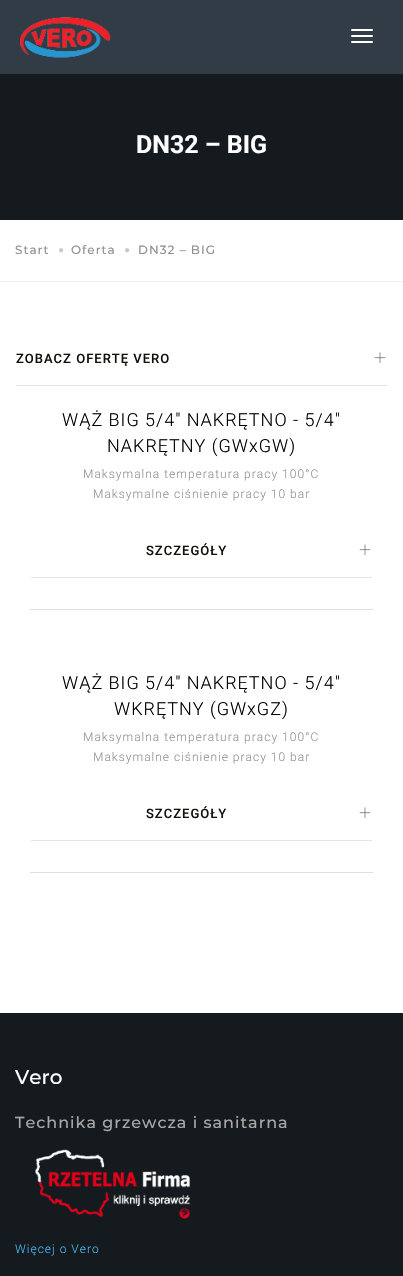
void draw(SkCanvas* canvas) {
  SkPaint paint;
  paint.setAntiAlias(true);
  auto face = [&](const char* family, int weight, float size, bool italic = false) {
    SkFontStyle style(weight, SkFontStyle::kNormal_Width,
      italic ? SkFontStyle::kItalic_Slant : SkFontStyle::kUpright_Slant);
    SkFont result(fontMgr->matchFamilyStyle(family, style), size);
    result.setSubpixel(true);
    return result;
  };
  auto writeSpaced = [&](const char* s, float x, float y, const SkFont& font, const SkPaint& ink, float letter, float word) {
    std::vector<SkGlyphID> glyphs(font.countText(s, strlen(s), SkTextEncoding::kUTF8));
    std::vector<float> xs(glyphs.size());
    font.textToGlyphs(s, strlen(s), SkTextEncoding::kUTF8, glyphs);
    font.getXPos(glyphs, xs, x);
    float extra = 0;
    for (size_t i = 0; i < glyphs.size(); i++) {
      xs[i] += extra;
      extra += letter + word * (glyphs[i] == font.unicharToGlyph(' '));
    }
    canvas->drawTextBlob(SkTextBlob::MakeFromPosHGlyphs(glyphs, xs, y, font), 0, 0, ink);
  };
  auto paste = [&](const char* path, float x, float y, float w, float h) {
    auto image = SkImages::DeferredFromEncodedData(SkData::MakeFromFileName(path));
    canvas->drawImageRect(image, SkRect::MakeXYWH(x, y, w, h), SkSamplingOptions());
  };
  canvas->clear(0xffffffff);
  paint.setColor(0xff313c46);
  canvas->drawRect(SkRect::MakeXYWH(0, 0, 403, 74), paint);
  paste("img/1.png", 20, 17, 91, 41);
  paint.setColor(0xffffffff);
  canvas->drawRoundRect(SkRect::MakeXYWH(351, 29, 22, 2), 1, 1, paint);
  canvas->drawRoundRect(SkRect::MakeXYWH(351, 35, 22, 2), 1, 1, paint);
  canvas->drawRoundRect(SkRect::MakeXYWH(351, 41, 22, 2), 1, 1, paint);
  paint.setColor(0xff151a1f);
  canvas->drawRect(SkRect::MakeXYWH(0, 74, 403, 146), paint);
  paint.setColor(0xffededed);
  canvas->drawRect(SkRect::MakeXYWH(0, 281, 403, 1), paint);
  paste("img/2.png", 59, 248, 5, 5);
  paste("img/2.png", 125, 248, 5, 5);
  paint.setColor(0xffe4e4e4);
  canvas->drawRect(SkRect::MakeXYWH(16, 385, 371, 1), paint);
  paste("img/3.png", 374, 352, 12, 11);
  canvas->drawRect(SkRect::MakeXYWH(31, 577, 341, 1), paint);
  paste("img/3.png", 359, 544, 12, 11);
  paint.setColor(0xffe0e0e0);
  canvas->drawRect(SkRect::MakeXYWH(30, 609, 343, 1), paint);
  paint.setColor(0xffe4e4e4);
  canvas->drawRect(SkRect::MakeXYWH(31, 840, 341, 1), paint);
  paste("img/3.png", 359, 807, 12, 11);
  paint.setColor(0xffe0e0e0);
  canvas->drawRect(SkRect::MakeXYWH(30, 872, 343, 1), paint);
  paint.setColor(0xff151a1f);
  canvas->drawRect(SkRect::MakeXYWH(0, 1013, 403, 263), paint);
  paste("img/4.png", 35, 1149, 155, 70);
  auto f0 = face("Roboto", 700, 25);
  paint.setColor(0xffffffff);
  canvas->drawString("DN32 – BIG", 136, 153, f0, paint);
  auto f1 = face("Montserrat", 500, 12);
  paint.setColor(0xff939393);
  {
    const struct { const char* s; float x, y; } items[] = {
      {"Start", 15, 254},
      {"Oferta", 71, 254},
      {"DN32 – BIG", 138, 254},
    };
    for (auto [s, x, y] : items) {
      writeSpaced(s, x, y, f1, paint, 1, 0);
    }
  }
  auto f2 = face("Roboto", 500, 13);
  paint.setColor(0xff13110b);
  writeSpaced("ZOBACZ OFERTĘ VERO", 16, 363, f2, paint, 1, 0);
  auto f3 = face("Roboto", 300, 18);
  paint.setColor(0xff000000);
  writeSpaced("WĄŻ BIG 5/4\" NAKRĘTNO - 5/4\"", 62, 426, f3, paint, 1, 0);
  writeSpaced("NAKRĘTNY (GWxGW)", 107, 452, f3, paint, 1, 0);
  auto f4 = face("Roboto", 300, 12);
  paint.setColor(0xff939393);
  writeSpaced("Maksymalna temperatura pracy 100°C", 83, 478, f4, paint, 1, 0);
  writeSpaced("Maksymalne ciśnienie pracy 10 bar", 93, 498, f4, paint, 1, 0);
  paint.setColor(0xff13110b);
  writeSpaced("SZCZEGÓŁY", 146, 555, f2, paint, 1, 0);
  paint.setColor(0xff000000);
  writeSpaced("WĄŻ BIG 5/4\" NAKRĘTNO - 5/4\"", 62, 689, f3, paint, 1, 0);
  writeSpaced("WKRĘTNY (GWxGZ)", 114, 715, f3, paint, 1, 0);
  paint.setColor(0xff939393);
  writeSpaced("Maksymalna temperatura pracy 100°C", 83, 741, f4, paint, 1, 0);
  writeSpaced("Maksymalne ciśnienie pracy 10 bar", 93, 761, f4, paint, 1, 0);
  paint.setColor(0xff13110b);
  writeSpaced("SZCZEGÓŁY", 146, 818, f2, paint, 1, 0);
  auto f5 = face("Montserrat", 500, 20);
  paint.setColor(0xffffffff);
  canvas->drawString("Vero", 15, 1084, f5, paint);
  auto f6 = face("Montserrat", 500, 16);
  paint.setColor(0xffa7a7a7);
  writeSpaced("Technika grzewcza i sanitarna", 15, 1128, f6, paint, 1, 0);
  paint.setColor(0xff48b6f0);
  writeSpaced("Więcej o Vero", 15, 1253, f4, paint, 1, 0);
}
